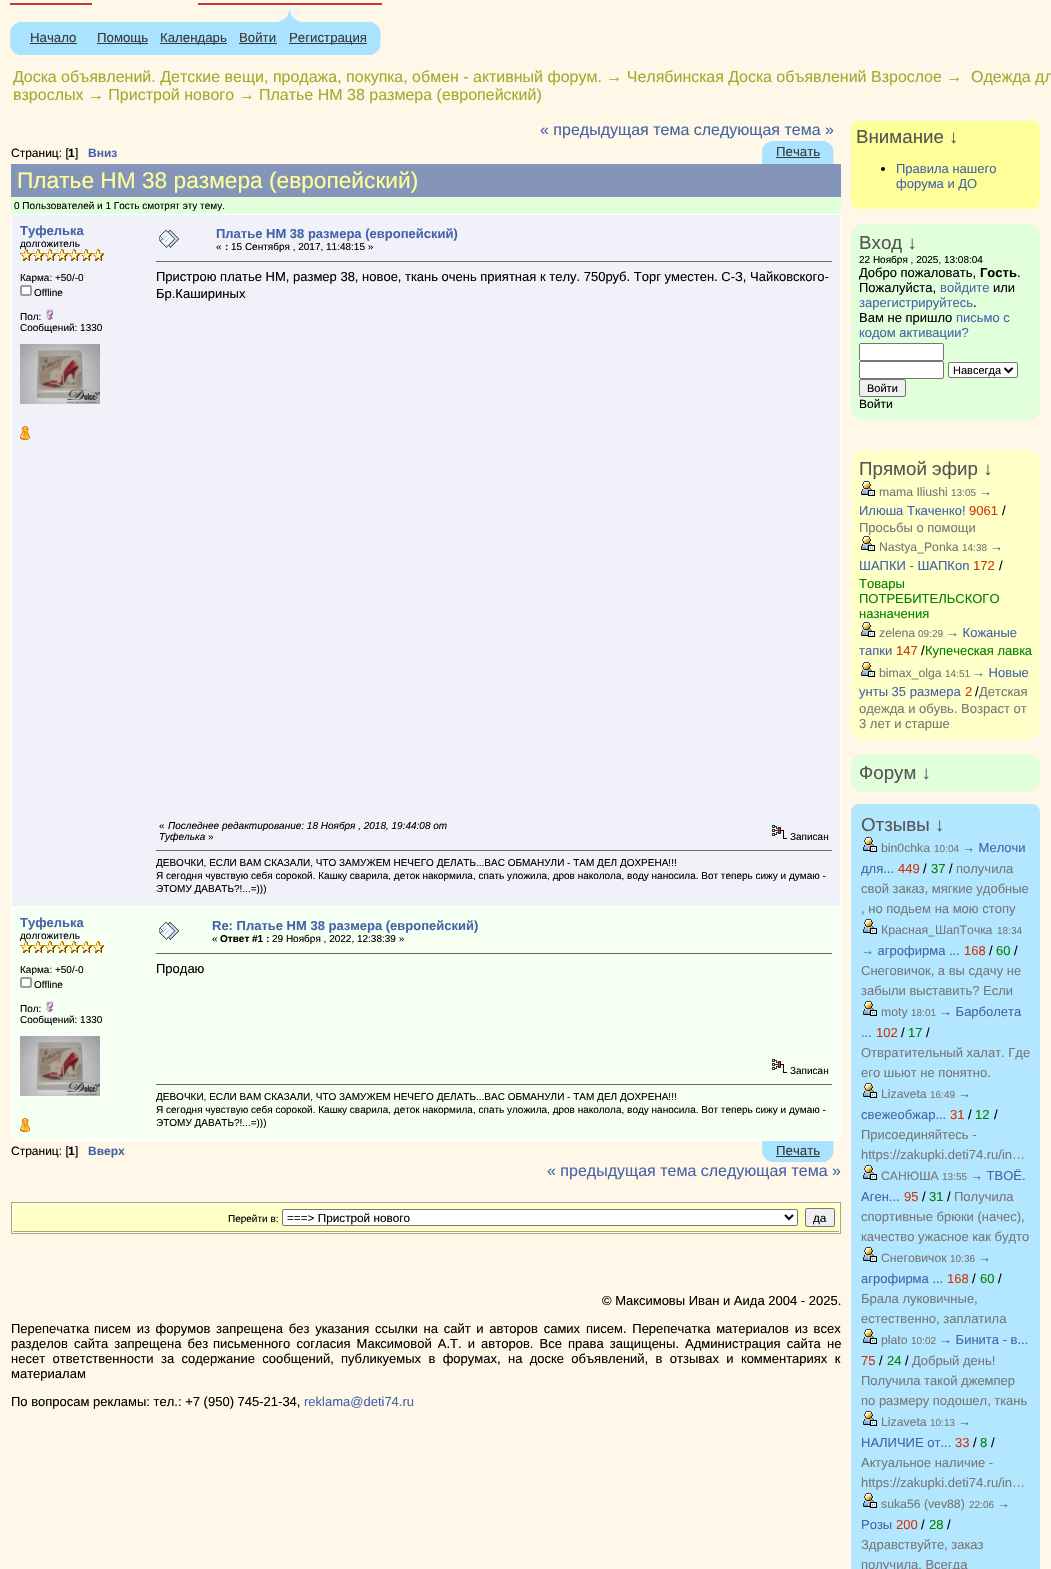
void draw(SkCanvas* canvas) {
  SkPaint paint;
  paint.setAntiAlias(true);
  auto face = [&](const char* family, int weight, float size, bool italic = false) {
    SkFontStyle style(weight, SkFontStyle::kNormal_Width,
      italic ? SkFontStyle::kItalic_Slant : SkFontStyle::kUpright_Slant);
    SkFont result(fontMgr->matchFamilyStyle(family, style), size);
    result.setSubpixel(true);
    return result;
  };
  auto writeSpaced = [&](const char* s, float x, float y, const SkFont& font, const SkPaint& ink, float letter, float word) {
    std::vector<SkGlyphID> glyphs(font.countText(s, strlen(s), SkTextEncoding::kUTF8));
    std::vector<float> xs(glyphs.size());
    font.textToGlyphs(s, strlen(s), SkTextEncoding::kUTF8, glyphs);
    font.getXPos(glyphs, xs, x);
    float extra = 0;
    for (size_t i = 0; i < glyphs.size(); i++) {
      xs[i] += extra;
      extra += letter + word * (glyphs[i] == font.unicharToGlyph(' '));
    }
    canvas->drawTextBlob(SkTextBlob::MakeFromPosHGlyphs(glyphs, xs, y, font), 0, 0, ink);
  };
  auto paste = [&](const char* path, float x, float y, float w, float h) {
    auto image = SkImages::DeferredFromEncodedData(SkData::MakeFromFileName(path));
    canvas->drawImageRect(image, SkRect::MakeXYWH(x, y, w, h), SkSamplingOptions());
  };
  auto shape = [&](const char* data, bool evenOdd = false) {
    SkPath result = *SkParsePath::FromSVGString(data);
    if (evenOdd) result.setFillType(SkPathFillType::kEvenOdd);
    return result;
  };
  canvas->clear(0xfffff8e8);
  paint.setColor(0xffcc3333);
  canvas->drawRect(SkRect::MakeXYWH(10, 3, 82, 2), paint);
  canvas->drawRect(SkRect::MakeXYWH(198, 3, 184, 2), paint);
  paste("img/1.png", 278, 8, 23, 14);
  paint.setColor(0xffa9e3ff);
  canvas->drawRect(SkRect::MakeXYWH(10, 22, 371, 33), paint);
  paste("img/2.png", 10, 22, 8, 33);
  {
    const struct { float x, y, w, h; SkColor color; } items[] = {
      {30, 43, 47, 1, 0xff393939},
      {97, 43, 51, 1, 0xff393939},
      {160, 43, 67, 1, 0xff393939},
      {239, 43, 38, 1, 0xff393939},
      {289, 43, 78, 1, 0xff393939},
    };
    for (auto [x, y, w, h, color] : items) {
      paint.setColor(color);
      canvas->drawRect(SkRect::MakeXYWH(x, y, w, h), paint);
    }
  }
  paste("img/3.png", 373, 22, 8, 33);
  paint.setColor(0xffa9e3ff);
  canvas->drawRect(SkRect::MakeXYWH(762, 141, 72, 23), paint);
  paste("img/4.png", 762, 141, 8, 23);
  paint.setColor(0xff393939);
  canvas->drawRect(SkRect::MakeXYWH(776, 157, 44, 1), paint);
  paste("img/5.png", 826, 141, 8, 23);
  {
    const struct { float x, y, w, h; SkColor color; } items[] = {
      {11, 164, 830, 33, 0xff8495b9},
      {11, 197, 830, 17, 0xffe2ffdb},
      {11, 214, 830, 927, 0xffffffff},
      {12, 215, 828, 691, 0xfff0f1f9},
    };
    for (auto [x, y, w, h, color] : items) {
      paint.setColor(color);
      canvas->drawRect(SkRect::MakeXYWH(x, y, w, h), paint);
    }
  }
  paste("img/6.png", 20, 249, 12, 12);
  paste("img/6.png", 32, 249, 12, 12);
  paste("img/6.png", 44, 249, 12, 12);
  paste("img/6.png", 56, 249, 12, 12);
  paste("img/6.png", 68, 249, 12, 12);
  paste("img/6.png", 80, 249, 12, 12);
  paste("img/6.png", 92, 249, 12, 12);
  paste("img/7.png", 20, 285, 12, 11);
  paste("img/8.png", 46, 309, 7, 11);
  paste("img/9.png", 20, 344, 80, 60);
  paste("img/10.png", 20, 426, 10, 14);
  paste("img/11.png", 159, 230, 20, 18);
  paint.setColor(0xff666666);
  canvas->drawRect(SkRect::MakeXYWH(156, 261, 676, 1), paint);
  paste("img/12.png", 772, 825, 15, 14);
  canvas->drawRect(SkRect::MakeXYWH(156, 850, 676, 1), paint);
  paint.setColor(0xfff5fff2);
  canvas->drawRect(SkRect::MakeXYWH(12, 907, 828, 233), paint);
  paste("img/13.png", 20, 941, 12, 12);
  paste("img/13.png", 32, 941, 12, 12);
  paste("img/13.png", 44, 941, 12, 12);
  paste("img/13.png", 56, 941, 12, 12);
  paste("img/13.png", 68, 941, 12, 12);
  paste("img/13.png", 80, 941, 12, 12);
  paste("img/13.png", 92, 941, 12, 12);
  paste("img/14.png", 20, 977, 12, 11);
  paste("img/15.png", 46, 1001, 7, 11);
  paste("img/9.png", 20, 1036, 80, 60);
  paste("img/16.png", 20, 1118, 10, 14);
  paste("img/17.png", 159, 922, 20, 18);
  paint.setColor(0xff666666);
  canvas->drawRect(SkRect::MakeXYWH(156, 953, 676, 1), paint);
  paste("img/18.png", 772, 1059, 15, 14);
  canvas->drawRect(SkRect::MakeXYWH(156, 1084, 676, 1), paint);
  paint.setColor(0xffa9e3ff);
  canvas->drawRect(SkRect::MakeXYWH(762, 1141, 72, 21), paint);
  paste("img/19.png", 762, 1141, 8, 21);
  paint.setColor(0xff393939);
  canvas->drawRect(SkRect::MakeXYWH(776, 1156, 44, 1), paint);
  paste("img/20.png", 826, 1141, 8, 21);
  paint.setColor(0xffffffff);
  canvas->drawRect(SkRect::MakeXYWH(11.5f, 1202.5f, 829, 31), paint);
  paint.setStroke(true);
  paint.setStrokeWidth(1);
  paint.setColor(0xffa8a873);
  canvas->drawRect(SkRect::MakeXYWH(11.5f, 1202.5f, 829, 31), paint);
  paint.setStroke(false);
  paint.setColor(0xffffffc8);
  canvas->drawRect(SkRect::MakeXYWH(13, 1204, 826, 27), paint);
  paint.setColor(0xffa8a873);
  canvas->drawRect(SkRect::MakeXYWH(13, 1231, 826, 1), paint);
  paint.setColor(0xffffffff);
  canvas->drawRoundRect(SkRect::MakeXYWH(282.5f, 1209.5f, 515, 16), 1.5f, 1.5f, paint);
  paint.setStroke(true);
  paint.setColor(0xff767676);
  canvas->drawRoundRect(SkRect::MakeXYWH(282.5f, 1209.5f, 515, 16), 1.5f, 1.5f, paint);
  paint.setStrokeWidth(2);
  paint.setColor(0xff000000);
  canvas->drawPath(shape("M785 1215L789 1219L793 1215"), paint);
  paint.setStroke(false);
  paint.setColor(0xffefefef);
  canvas->drawRoundRect(SkRect::MakeXYWH(805.5f, 1208.5f, 29, 18), 1.5f, 1.5f, paint);
  paint.setStroke(true);
  paint.setStrokeWidth(1);
  paint.setColor(0xff767676);
  canvas->drawRoundRect(SkRect::MakeXYWH(805.5f, 1208.5f, 29, 18), 1.5f, 1.5f, paint);
  paint.setStroke(false);
  paint.setColor(0xffffff99);
  canvas->drawRoundRect(SkRect::MakeXYWH(851, 121, 189, 88), 8, 8, paint);
  paint.setColor(0xff000000);
  canvas->drawCircle(883, 169, 2, paint);
  paint.setColor(0xffe2ffdb);
  canvas->drawRect(SkRect::MakeXYWH(851, 224, 189, 196), paint);
  paste("img/21.png", 851, 224, 8, 8);
  paste("img/22.png", 1032, 224, 8, 8);
  paint.setColor(0xffffffff);
  canvas->drawRoundRect(SkRect::MakeXYWH(859.5f, 343.5f, 84, 17), 1.5f, 1.5f, paint);
  paint.setStroke(true);
  paint.setColor(0xff767676);
  canvas->drawRoundRect(SkRect::MakeXYWH(859.5f, 343.5f, 84, 17), 1.5f, 1.5f, paint);
  paint.setStroke(false);
  paint.setColor(0xffffffff);
  canvas->drawRoundRect(SkRect::MakeXYWH(859.5f, 361.5f, 84, 17), 1.5f, 1.5f, paint);
  paint.setStroke(true);
  paint.setColor(0xff767676);
  canvas->drawRoundRect(SkRect::MakeXYWH(859.5f, 361.5f, 84, 17), 1.5f, 1.5f, paint);
  paint.setStroke(false);
  paint.setColor(0xffffffff);
  canvas->drawRoundRect(SkRect::MakeXYWH(948.5f, 362.5f, 69, 15), 1.5f, 1.5f, paint);
  paint.setStroke(true);
  paint.setColor(0xff767676);
  canvas->drawRoundRect(SkRect::MakeXYWH(948.5f, 362.5f, 69, 15), 1.5f, 1.5f, paint);
  paint.setStrokeWidth(2);
  paint.setColor(0xff000000);
  canvas->drawPath(shape("M1004.5 368L1008.5 372L1012.5 368"), paint);
  paint.setStroke(false);
  paint.setColor(0xffefefef);
  canvas->drawRoundRect(SkRect::MakeXYWH(859.5f, 379.5f, 46, 17), 1.5f, 1.5f, paint);
  paint.setStroke(true);
  paint.setStrokeWidth(1);
  paint.setColor(0xff767676);
  canvas->drawRoundRect(SkRect::MakeXYWH(859.5f, 379.5f, 46, 17), 1.5f, 1.5f, paint);
  paste("img/23.png", 851, 412, 8, 8);
  paste("img/24.png", 1032, 412, 8, 8);
  paint.setStroke(false);
  paint.setColor(0xffffffc8);
  canvas->drawRect(SkRect::MakeXYWH(851, 450, 189, 289), paint);
  paste("img/25.png", 851, 450, 8, 8);
  paste("img/26.png", 1032, 450, 8, 8);
  paste("img/27.png", 861, 481, 14, 15);
  paste("img/27.png", 861, 536, 14, 15);
  paste("img/27.png", 861, 622, 14, 15);
  paste("img/27.png", 861, 662, 14, 15);
  paste("img/28.png", 851, 731, 8, 8);
  paste("img/29.png", 1032, 731, 8, 8);
  paint.setColor(0xffe2ffdb);
  canvas->drawRect(SkRect::MakeXYWH(851, 754, 189, 38), paint);
  paste("img/21.png", 851, 754, 8, 8);
  paste("img/22.png", 1032, 754, 8, 8);
  paste("img/23.png", 851, 784, 8, 8);
  paste("img/24.png", 1032, 784, 8, 8);
  paint.setColor(0xffb3e7ff);
  canvas->drawRoundRect(SkRect::MakeXYWH(851, 804, 189, 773), 8, 8, paint);
  paste("img/30.png", 863, 837, 14, 15);
  paste("img/30.png", 863, 919, 14, 15);
  paste("img/30.png", 863, 1001, 14, 15);
  paste("img/30.png", 863, 1083, 14, 15);
  paste("img/30.png", 863, 1165, 14, 15);
  paste("img/30.png", 863, 1247, 14, 15);
  paste("img/30.png", 863, 1329, 14, 15);
  paste("img/30.png", 863, 1411, 14, 15);
  paste("img/30.png", 863, 1493, 14, 15);
  auto f0 = face("Liberation Sans", 400, 13.25f);
  paint.setColor(0xff393939);
  {
    const struct { const char* s; float x, y; } items[] = {
      {"Начало", 30, 42},
      {"Помощь", 97, 42},
      {"Календарь", 160, 42},
      {"Войти", 239, 42},
      {"Регистрация", 289, 42},
    };
    for (auto [s, x, y] : items) {
      canvas->drawString(s, x, y, f0, paint);
    }
  }
  auto f1 = face("Liberation Sans", 400, 16);
  paint.setColor(0xffa8a82f);
  {
    const struct { const char* s; float x, y; } items[] = {
      {"Доска объявлений. Детские вещи, продажа, покупка, обмен - активный форум. → Челябинская Доска объявлений Взрослое →", 13, 82},
      {"Одежда дл", 971, 82},
      {"взрослых → Пристрой нового → Платье НМ 38 размера (европейский)", 13, 100},
    };
    for (auto [s, x, y] : items) {
      canvas->drawString(s, x, y, f1, paint);
    }
  }
  auto f2 = face("Liberation Sans", 400, 12);
  paint.setColor(0xff000000);
  canvas->drawString("Страниц: [", 11, 157, f2, paint);
  auto f3 = face("Liberation Sans", 700, 12);
  canvas->drawString("1", 68, 157, f3, paint);
  canvas->drawString("]", 75, 157, f2, paint);
  paint.setColor(0xff4464a8);
  canvas->drawString("Вниз", 88, 157, f3, paint);
  canvas->drawString("« предыдущая тема следующая тема »", 540, 135, f1, paint);
  paint.setColor(0xff393939);
  canvas->drawString("Печать", 776, 156, f0, paint);
  auto f4 = face("Liberation Sans", 400, 22.7f);
  paint.setColor(0xffffff99);
  canvas->drawString("Платье НМ 38 размера (европейский)", 17, 188, f4, paint);
  auto f5 = face("Liberation Sans", 400, 10);
  paint.setColor(0xff000000);
  canvas->drawString("0 Пользователей и 1 Гость смотрят эту тему.", 14, 209, f5, paint);
  auto f6 = face("Liberation Sans", 700, 13);
  paint.setColor(0xff4464a8);
  canvas->drawString("Туфелька", 20, 235, f6, paint);
  paint.setColor(0xff000000);
  {
    const struct { const char* s; float x, y; } items[] = {
      {"долгожитель", 20, 247},
      {"Карма: +50/-0", 20, 281},
      {"Offline", 34, 296},
      {"Пол:", 20, 320},
      {"Сообщений: 1330", 20, 331},
    };
    for (auto [s, x, y] : items) {
      canvas->drawString(s, x, y, f5, paint);
    }
  }
  paint.setColor(0xff4464a8);
  canvas->drawString("Платье НМ 38 размера (европейский)", 216, 238, f6, paint);
  paint.setColor(0xff000000);
  canvas->drawString("«", 216, 250, f5, paint);
  auto f7 = face("Liberation Sans", 700, 10);
  canvas->drawString(":", 225, 250, f7, paint);
  canvas->drawString("15 Сентября , 2017, 11:48:15 »", 231, 250, f5, paint);
  auto f8 = face("Liberation Sans", 400, 13);
  canvas->drawString("Пристрою платье НМ, размер 38, новое, ткань очень приятная к телу. 750руб. Торг уместен. С-З, Чайковского-", 156, 281, f8, paint);
  canvas->drawString("Бр.Кашириных", 156, 298, f8, paint);
  canvas->drawString("«", 159, 829, f5, paint);
  auto f9 = face("Liberation Sans", 400, 10, true);
  canvas->drawString("Последнее редактирование: 18 Ноября , 2018, 19:44:08 от", 168, 829, f9, paint);
  canvas->drawString("Туфелька", 159, 840, f9, paint);
  {
    const struct { const char* s; float x, y; } items[] = {
      {"»", 208, 840},
      {"Записан", 790, 840},
      {"ДЕВОЧКИ, ЕСЛИ ВАМ СКАЗАЛИ, ЧТО ЗАМУЖЕМ НЕЧЕГО ДЕЛАТЬ...ВАС ОБМАНУЛИ - ТАМ ДЕЛ ДОХРЕНА!!!", 156, 866},
      {"Я сегодня чувствую себя сорокой. Кашку сварила, деток накормила, спать уложила, дров наколола, воду наносила. Вот теперь сижу и думаю -", 156, 879},
      {"ЭТОМУ ДАВАТЬ?!...=)))", 156, 892},
    };
    for (auto [s, x, y] : items) {
      canvas->drawString(s, x, y, f5, paint);
    }
  }
  paint.setColor(0xff4464a8);
  canvas->drawString("Туфелька", 20, 927, f6, paint);
  paint.setColor(0xff000000);
  {
    const struct { const char* s; float x, y; } items[] = {
      {"долгожитель", 20, 939},
      {"Карма: +50/-0", 20, 973},
      {"Offline", 34, 988},
      {"Пол:", 20, 1012},
      {"Сообщений: 1330", 20, 1023},
    };
    for (auto [s, x, y] : items) {
      canvas->drawString(s, x, y, f5, paint);
    }
  }
  paint.setColor(0xff4464a8);
  canvas->drawString("Re: Платье НМ 38 размера (европейский)", 212, 930, f6, paint);
  paint.setColor(0xff000000);
  canvas->drawString("«", 212, 942, f5, paint);
  canvas->drawString("Ответ #1 :", 220, 942, f7, paint);
  canvas->drawString("29 Ноября , 2022, 12:38:39 »", 272, 942, f5, paint);
  canvas->drawString("Продаю", 156, 973, f8, paint);
  {
    const struct { const char* s; float x, y; } items[] = {
      {"Записан", 790, 1074},
      {"ДЕВОЧКИ, ЕСЛИ ВАМ СКАЗАЛИ, ЧТО ЗАМУЖЕМ НЕЧЕГО ДЕЛАТЬ...ВАС ОБМАНУЛИ - ТАМ ДЕЛ ДОХРЕНА!!!", 156, 1100},
      {"Я сегодня чувствую себя сорокой. Кашку сварила, деток накормила, спать уложила, дров наколола, воду наносила. Вот теперь сижу и думаю -", 156, 1113},
      {"ЭТОМУ ДАВАТЬ?!...=)))", 156, 1126},
    };
    for (auto [s, x, y] : items) {
      canvas->drawString(s, x, y, f5, paint);
    }
  }
  canvas->drawString("Страниц: [", 11, 1155, f2, paint);
  canvas->drawString("1", 68, 1155, f3, paint);
  canvas->drawString("]", 75, 1155, f2, paint);
  paint.setColor(0xff4464a8);
  canvas->drawString("Вверх", 88, 1155, f3, paint);
  paint.setColor(0xff393939);
  canvas->drawString("Печать", 776, 1155, f0, paint);
  paint.setColor(0xff4464a8);
  canvas->drawString("« предыдущая тема следующая тема »", 547, 1176, f1, paint);
  paint.setColor(0xff000000);
  canvas->drawString("Перейти в:", 228, 1222, f5, paint);
  auto f10 = face("Liberation Sans", 400, 11.75f);
  canvas->drawString("===> Пристрой нового", 287, 1222, f10, paint);
  canvas->drawString("да", 813, 1222, f10, paint);
  canvas->drawString("© Максимовы Иван и Аида 2004 - 2025.", 602, 1305, f8, paint);
  canvas->drawString("Перепечатка", 11, 1333, f8, paint);
  writeSpaced("писем из форумов запрещена без указания ссылки на сайт и авторов самих", 94, 1333, f8, paint, 0, 2.1f);
  writeSpaced("писем. Перепечатка материалов из всех", 586, 1333, f8, paint, 0, 2.1f);
  {
    const struct { const char* s; float x, y; } items[] = {
      {"разделов сайта запрещена без", 11, 1348},
      {"письменного согласия Максимовой А.Т. и авторов. Все права защищены.", 213, 1348},
      {"Администрация сайта не", 685, 1348},
    };
    for (auto [s, x, y] : items) {
      writeSpaced(s, x, y, f8, paint, 0, 2.5f);
    }
  }
  writeSpaced("несет ответственности за содержание сообщений,", 11, 1363, f8, paint, 0, 3.75f);
  writeSpaced("публикуемых в форумах, на доске объявлений, в отзывах и комментариях к", 341, 1363, f8, paint, 0, 3.75f);
  canvas->drawString("материалам", 11, 1378, f8, paint);
  canvas->drawString("По вопросам рекламы: тел.: +7 (950) 745-21-34,", 11, 1406, f8, paint);
  paint.setColor(0xff4464a8);
  canvas->drawString("reklama@deti74.ru", 304, 1406, f8, paint);
  auto f11 = face("Liberation Sans", 400, 18.75f);
  paint.setColor(0xff555555);
  canvas->drawString("Внимание ↓", 856, 143, f11, paint);
  paint.setColor(0xff4464a8);
  canvas->drawString("Правила нашего", 896, 173, f8, paint);
  canvas->drawString("форума и ДО", 896, 188, f8, paint);
  paint.setColor(0xff555555);
  canvas->drawString("Вход ↓", 859, 249, f11, paint);
  paint.setColor(0xff000000);
  canvas->drawString("22 Ноября , 2025, 13:08:04", 859, 263, f5, paint);
  canvas->drawString("Добро пожаловать,", 859, 277, f8, paint);
  canvas->drawString("Гость", 980, 277, f6, paint);
  canvas->drawString(".", 1017, 277, f8, paint);
  canvas->drawString("Пожалуйста,", 859, 292, f8, paint);
  paint.setColor(0xff4464a8);
  canvas->drawString("войдите", 940, 292, f8, paint);
  paint.setColor(0xff000000);
  canvas->drawString("или", 993, 292, f8, paint);
  paint.setColor(0xff4464a8);
  canvas->drawString("зарегистрируйтесь", 859, 307, f8, paint);
  paint.setColor(0xff000000);
  canvas->drawString(".", 973, 307, f8, paint);
  canvas->drawString("Вам не пришло", 859, 322, f8, paint);
  paint.setColor(0xff4464a8);
  canvas->drawString("письмо с", 956, 322, f8, paint);
  canvas->drawString("кодом активации?", 859, 337, f8, paint);
  auto f12 = face("Liberation Sans", 400, 11);
  paint.setColor(0xff000000);
  canvas->drawString("Навсегда", 953, 374, f12, paint);
  canvas->drawString("Войти", 867, 392, f12, paint);
  canvas->drawString("Войти", 859, 408, f2, paint);
  paint.setColor(0xff555555);
  canvas->drawString("Прямой эфир ↓", 859, 475, f11, paint);
  auto f13 = face("Liberation Sans", 400, 12.25f);
  paint.setColor(0xff777777);
  canvas->drawString("mama Iliushi", 879, 496, f13, paint);
  canvas->drawString("13:05", 951, 496, f5, paint);
  paint.setColor(0xff4464a8);
  canvas->drawString("→", 979, 496, f8, paint);
  canvas->drawString("Илюша Ткаченко!", 859, 515, f8, paint);
  paint.setColor(0xffce370b);
  canvas->drawString("9061", 969, 515, f8, paint);
  paint.setColor(0xff000000);
  canvas->drawString("/", 1002, 515, f8, paint);
  paint.setColor(0xff777777);
  canvas->drawString("Просьбы о помощи", 859, 532, f8, paint);
  canvas->drawString("Nastya_Ponka", 879, 551, f13, paint);
  canvas->drawString("14:38", 962, 551, f5, paint);
  paint.setColor(0xff4464a8);
  canvas->drawString("→", 990, 551, f8, paint);
  canvas->drawString("ШАПКИ - ШАПКon", 859, 570, f8, paint);
  paint.setColor(0xffce370b);
  canvas->drawString("172", 973, 570, f8, paint);
  paint.setColor(0xff000000);
  canvas->drawString("/", 999, 570, f8, paint);
  paint.setColor(0xff008000);
  {
    const struct { const char* s; float x, y; } items[] = {
      {"Товары", 859, 588},
      {"ПОТРЕБИТЕЛЬСКОГО", 859, 603},
      {"назначения", 859, 618},
    };
    for (auto [s, x, y] : items) {
      canvas->drawString(s, x, y, f8, paint);
    }
  }
  paint.setColor(0xff777777);
  canvas->drawString("zelena", 879, 637, f13, paint);
  canvas->drawString("09:29", 918, 637, f5, paint);
  paint.setColor(0xff4464a8);
  canvas->drawString("→ Кожаные", 946, 637, f8, paint);
  canvas->drawString("тапки", 859, 655, f8, paint);
  paint.setColor(0xffce370b);
  canvas->drawString("147", 896, 655, f8, paint);
  paint.setColor(0xff000000);
  canvas->drawString("/", 921, 655, f8, paint);
  paint.setColor(0xff008000);
  canvas->drawString("Купеческая лавка", 925, 655, f8, paint);
  paint.setColor(0xff777777);
  canvas->drawString("bimax_olga", 879, 677, f13, paint);
  canvas->drawString("14:51", 945, 677, f5, paint);
  paint.setColor(0xff4464a8);
  canvas->drawString("→ Новые", 972, 677, f8, paint);
  canvas->drawString("унты 35 размера", 859, 696, f8, paint);
  paint.setColor(0xffce370b);
  canvas->drawString("2", 965, 696, f8, paint);
  paint.setColor(0xff000000);
  canvas->drawString("/", 975, 696, f8, paint);
  paint.setColor(0xff777777);
  {
    const struct { const char* s; float x, y; } items[] = {
      {"Детская", 979, 696},
      {"одежда и обувь. Возраст от", 859, 713},
      {"3 лет и старше", 859, 728},
    };
    for (auto [s, x, y] : items) {
      canvas->drawString(s, x, y, f8, paint);
    }
  }
  paint.setColor(0xff555555);
  canvas->drawString("Форум ↓", 859, 779, f11, paint);
  canvas->drawString("Отзывы ↓", 861, 831, f11, paint);
  paint.setColor(0xff777777);
  canvas->drawString("bin0chka", 881, 852, f13, paint);
  canvas->drawString("10:04", 934, 852, f5, paint);
  paint.setColor(0xff4464a8);
  canvas->drawString("→ Мелочи", 962, 852, f8, paint);
  canvas->drawString("для...", 861, 873, f8, paint);
  paint.setColor(0xffce370b);
  canvas->drawString("449", 898, 873, f8, paint);
  paint.setColor(0xff000000);
  canvas->drawString("/", 923, 873, f8, paint);
  paint.setColor(0xff008000);
  canvas->drawString("37", 931, 873, f8, paint);
  paint.setColor(0xff000000);
  canvas->drawString("/", 949, 873, f8, paint);
  paint.setColor(0xff777777);
  {
    const struct { const char* s; float x, y; } items[] = {
      {"получила", 956, 873},
      {"свой заказ, мягкие удобные", 861, 893},
      {", но подьем на мою стопу", 861, 913},
    };
    for (auto [s, x, y] : items) {
      canvas->drawString(s, x, y, f8, paint);
    }
  }
  canvas->drawString("Красная_ШапТочка", 881, 934, f13, paint);
  canvas->drawString("18:34", 997, 934, f5, paint);
  paint.setColor(0xff4464a8);
  canvas->drawString("→ агрофирма ...", 861, 955, f8, paint);
  paint.setColor(0xffce370b);
  canvas->drawString("168", 964, 955, f8, paint);
  paint.setColor(0xff000000);
  canvas->drawString("/", 989, 955, f8, paint);
  paint.setColor(0xff008000);
  canvas->drawString("60", 996, 955, f8, paint);
  paint.setColor(0xff000000);
  canvas->drawString("/", 1014, 955, f8, paint);
  paint.setColor(0xff777777);
  canvas->drawString("Снеговичок, а вы сдачу не", 861, 975, f8, paint);
  canvas->drawString("забыли выставить? Если", 861, 995, f8, paint);
  canvas->drawString("moty", 881, 1016, f13, paint);
  canvas->drawString("18:01", 911, 1016, f5, paint);
  paint.setColor(0xff4464a8);
  canvas->drawString("→ Барболета", 939, 1016, f8, paint);
  canvas->drawString("...", 861, 1037, f8, paint);
  paint.setColor(0xffce370b);
  canvas->drawString("102", 876, 1037, f8, paint);
  paint.setColor(0xff000000);
  canvas->drawString("/", 901, 1037, f8, paint);
  paint.setColor(0xff008000);
  canvas->drawString("17", 908, 1037, f8, paint);
  paint.setColor(0xff000000);
  canvas->drawString("/", 926, 1037, f8, paint);
  paint.setColor(0xff777777);
  canvas->drawString("Отвратительный халат. Где", 861, 1057, f8, paint);
  canvas->drawString("его шьют не понятно.", 861, 1077, f8, paint);
  canvas->drawString("Lizaveta", 881, 1098, f13, paint);
  canvas->drawString("16:49", 930, 1098, f5, paint);
  paint.setColor(0xff4464a8);
  canvas->drawString("→", 958, 1098, f8, paint);
  canvas->drawString("свежеобжар...", 861, 1119, f8, paint);
  paint.setColor(0xffce370b);
  canvas->drawString("31", 950, 1119, f8, paint);
  paint.setColor(0xff000000);
  canvas->drawString("/", 968, 1119, f8, paint);
  paint.setColor(0xff008000);
  canvas->drawString("12", 975, 1119, f8, paint);
  paint.setColor(0xff000000);
  canvas->drawString("/", 994, 1119, f8, paint);
  paint.setColor(0xff777777);
  canvas->drawString("Присоединяйтесь -", 861, 1139, f8, paint);
  canvas->drawString("https://zakupki.deti74.ru/in…", 861, 1159, f8, paint);
  canvas->drawString("САНЮША", 881, 1180, f13, paint);
  canvas->drawString("13:55", 942, 1180, f5, paint);
  paint.setColor(0xff4464a8);
  canvas->drawString("→ ТВОЁ.", 970, 1180, f8, paint);
  canvas->drawString("Аген...", 861, 1201, f8, paint);
  paint.setColor(0xffce370b);
  canvas->drawString("95", 904, 1201, f8, paint);
  paint.setColor(0xff000000);
  canvas->drawString("/", 922, 1201, f8, paint);
  paint.setColor(0xff008000);
  canvas->drawString("31", 929, 1201, f8, paint);
  paint.setColor(0xff000000);
  canvas->drawString("/", 947, 1201, f8, paint);
  paint.setColor(0xff777777);
  {
    const struct { const char* s; float x, y; } items[] = {
      {"Получила", 954, 1201},
      {"спортивные брюки (начес),", 861, 1221},
      {"качество ужасное как будто", 861, 1241},
    };
    for (auto [s, x, y] : items) {
      canvas->drawString(s, x, y, f8, paint);
    }
  }
  canvas->drawString("Снеговичок", 881, 1262, f13, paint);
  canvas->drawString("10:36", 950, 1262, f5, paint);
  paint.setColor(0xff4464a8);
  canvas->drawString("→", 978, 1262, f8, paint);
  canvas->drawString("агрофирма ...", 861, 1283, f8, paint);
  paint.setColor(0xffce370b);
  canvas->drawString("168", 947, 1283, f8, paint);
  paint.setColor(0xff000000);
  canvas->drawString("/", 972, 1283, f8, paint);
  paint.setColor(0xff008000);
  canvas->drawString("60", 980, 1283, f8, paint);
  paint.setColor(0xff000000);
  canvas->drawString("/", 998, 1283, f8, paint);
  paint.setColor(0xff777777);
  canvas->drawString("Брала луковичные,", 861, 1303, f8, paint);
  canvas->drawString("естественно, заплатила", 861, 1323, f8, paint);
  canvas->drawString("plato", 881, 1344, f13, paint);
  canvas->drawString("10:02", 911, 1344, f5, paint);
  paint.setColor(0xff4464a8);
  canvas->drawString("→ Бинита - в...", 939, 1344, f8, paint);
  paint.setColor(0xffce370b);
  canvas->drawString("75", 861, 1365, f8, paint);
  paint.setColor(0xff000000);
  canvas->drawString("/", 879, 1365, f8, paint);
  paint.setColor(0xff008000);
  canvas->drawString("24", 887, 1365, f8, paint);
  paint.setColor(0xff000000);
  canvas->drawString("/", 905, 1365, f8, paint);
  paint.setColor(0xff777777);
  {
    const struct { const char* s; float x, y; } items[] = {
      {"Добрый день!", 912, 1365},
      {"Получила такой джемпер", 861, 1385},
      {"по размеру подошел, ткань", 861, 1405},
    };
    for (auto [s, x, y] : items) {
      canvas->drawString(s, x, y, f8, paint);
    }
  }
  canvas->drawString("Lizaveta", 881, 1426, f13, paint);
  canvas->drawString("10:13", 930, 1426, f5, paint);
  paint.setColor(0xff4464a8);
  canvas->drawString("→", 958, 1426, f8, paint);
  canvas->drawString("НАЛИЧИЕ от...", 861, 1447, f8, paint);
  paint.setColor(0xffce370b);
  canvas->drawString("33", 955, 1447, f8, paint);
  paint.setColor(0xff000000);
  canvas->drawString("/", 973, 1447, f8, paint);
  paint.setColor(0xff008000);
  canvas->drawString("8", 980, 1447, f8, paint);
  paint.setColor(0xff000000);
  canvas->drawString("/", 991, 1447, f8, paint);
  paint.setColor(0xff777777);
  canvas->drawString("Актуальное наличие -", 861, 1467, f8, paint);
  canvas->drawString("https://zakupki.deti74.ru/in…", 861, 1487, f8, paint);
  canvas->drawString("suka56 (vev88)", 881, 1508, f13, paint);
  canvas->drawString("22:06", 969, 1508, f5, paint);
  paint.setColor(0xff4464a8);
  canvas->drawString("→", 997, 1508, f8, paint);
  canvas->drawString("Розы", 861, 1529, f8, paint);
  paint.setColor(0xffce370b);
  canvas->drawString("200", 896, 1529, f8, paint);
  paint.setColor(0xff000000);
  canvas->drawString("/", 921, 1529, f8, paint);
  paint.setColor(0xff008000);
  canvas->drawString("28", 929, 1529, f8, paint);
  paint.setColor(0xff000000);
  canvas->drawString("/", 947, 1529, f8, paint);
  paint.setColor(0xff777777);
  canvas->drawString("Здравствуйте, заказ", 861, 1549, f8, paint);
  canvas->drawString("получила. Всегда", 861, 1569, f8, paint);
}
